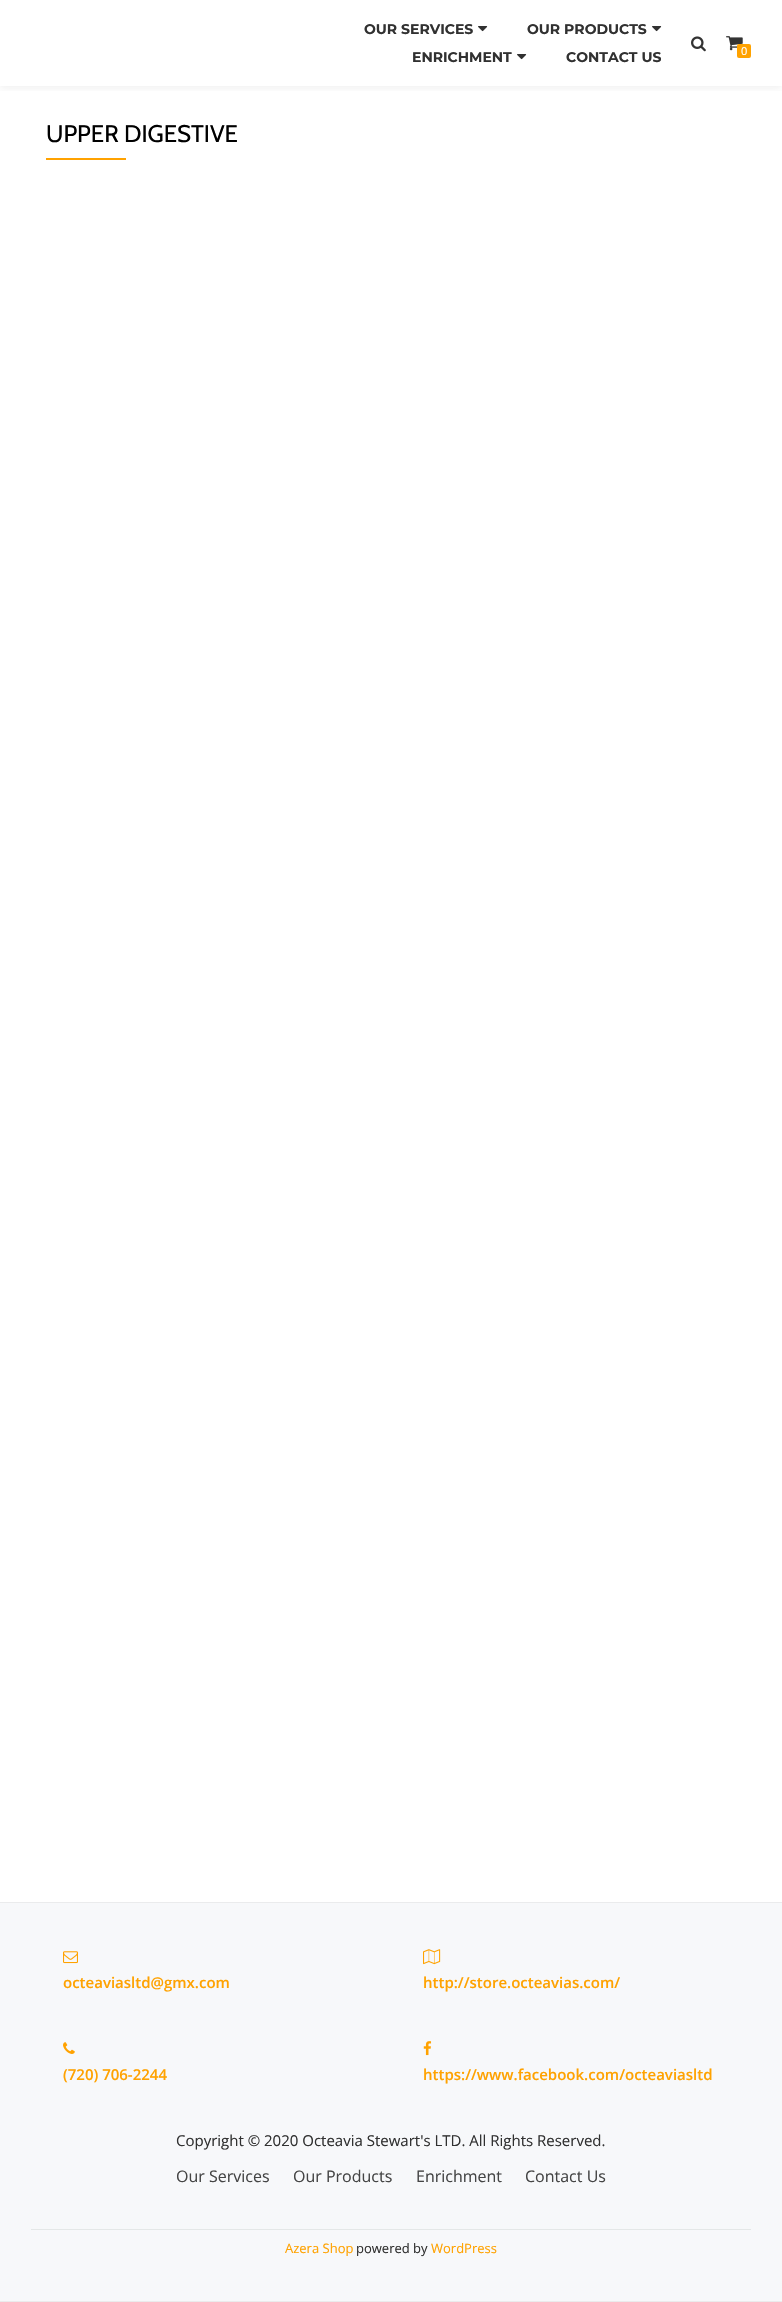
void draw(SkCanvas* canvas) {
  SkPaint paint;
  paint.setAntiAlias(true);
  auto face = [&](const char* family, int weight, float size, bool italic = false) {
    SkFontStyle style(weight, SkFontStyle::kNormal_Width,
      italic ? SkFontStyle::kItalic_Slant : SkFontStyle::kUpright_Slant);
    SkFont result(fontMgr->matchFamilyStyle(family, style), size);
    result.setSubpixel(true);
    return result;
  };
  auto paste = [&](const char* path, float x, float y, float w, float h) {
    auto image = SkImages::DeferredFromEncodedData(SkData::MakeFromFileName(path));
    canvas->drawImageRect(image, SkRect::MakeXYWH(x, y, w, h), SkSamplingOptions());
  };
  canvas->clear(0xffffffff);
  canvas->save();
  canvas->clipRect(SkRect::MakeXYWH(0, 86, 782, 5));
  paint.setColor(0x14323232);
  paint.setMaskFilter(SkMaskFilter::MakeBlur(kNormal_SkBlurStyle, 4));
  canvas->drawRect(SkRect::MakeXYWH(0, 2, 782, 86), paint);
  paint.setMaskFilter(nullptr);
  canvas->restore();
  paste("img/1.png", 478, 26, 10, 6);
  paste("img/1.png", 652, 26, 10, 6);
  paste("img/1.png", 517, 54, 10, 6);
  paste("img/2.png", 691, 36, 15, 16);
  paste("img/3.png", 726, 36, 17, 15);
  paint.setColor(0xffffa200);
  canvas->drawRoundRect(SkRect::MakeXYWH(737, 44, 14, 14), 2, 2, paint);
  {
    const struct { float x, y, w, h; SkColor color; } items[] = {
      {46, 158, 80, 2, 0xffffa200},
      {0, 1903, 782, 398, 0xfff7f8fa},
      {0, 1902, 782, 1, 0xffeaebec},
      {0, 2301, 782, 1, 0xffeaebec},
    };
    for (auto [x, y, w, h, color] : items) {
      paint.setColor(color);
      canvas->drawRect(SkRect::MakeXYWH(x, y, w, h), paint);
    }
  }
  paste("img/4.png", 63, 1951, 15, 13);
  paste("img/5.png", 423, 1949, 18, 16);
  paste("img/6.png", 63, 2042, 12, 12);
  paste("img/7.png", 423, 2041, 9, 15);
  paint.setColor(0xffe4e7e7);
  canvas->drawRect(SkRect::MakeXYWH(31, 2229, 720, 1), paint);
  auto f0 = face("Montserrat", 700, 14);
  paint.setColor(0xff313131);
  {
    const struct { const char* s; float x, y; } items[] = {
      {"OUR SERVICES", 364, 34},
      {"OUR PRODUCTS", 527, 34},
      {"ENRICHMENT", 412, 62},
      {"CONTACT US", 566, 62},
    };
    for (auto [s, x, y] : items) {
      canvas->drawString(s, x, y, f0, paint);
    }
  }
  auto f1 = face("Open Sans", 400, 11);
  paint.setColor(0xffffffff);
  canvas->drawString("0", 741, 55, f1, paint);
  auto f2 = face("Cabin", 400, 24);
  paint.setColor(0xff000000);
  canvas->drawString("UPPER DIGESTIVE", 46, 142, f2, paint);
  auto f3 = face("Open Sans", 600, 15);
  paint.setColor(0xffffa200);
  {
    const struct { const char* s; float x, y; } items[] = {
      {"octeaviasltd@gmx.com", 63, 1988},
      {"http://store.octeavias.com/", 423, 1988},
      {"(720) 706-2244", 63, 2080},
      {"https://www.facebook.com/octeaviasltd", 423, 2080},
    };
    for (auto [s, x, y] : items) {
      canvas->drawString(s, x, y, f3, paint);
    }
  }
  auto f4 = face("Open Sans", 400, 15);
  paint.setColor(0xff313131);
  canvas->drawString("Copyright © 2020 Octeavia Stewart's LTD. All Rights Reserved.", 176, 2146, f4, paint);
  auto f5 = face("Open Sans", 400, 16);
  paint.setColor(0xff454545);
  {
    const struct { const char* s; float x, y; } items[] = {
      {"Our Services", 176, 2182},
      {"Our Products", 293, 2182},
      {"Enrichment", 416, 2182},
      {"Contact Us", 525, 2182},
    };
    for (auto [s, x, y] : items) {
      canvas->drawString(s, x, y, f5, paint);
    }
  }
  auto f6 = face("Open Sans", 400, 13);
  paint.setColor(0xffffa200);
  canvas->drawString("Azera Shop", 285, 2253, f6, paint);
  paint.setColor(0xff313131);
  canvas->drawString("powered by", 356, 2253, f6, paint);
  paint.setColor(0xffffa200);
  canvas->drawString("WordPress", 431, 2253, f6, paint);
}
